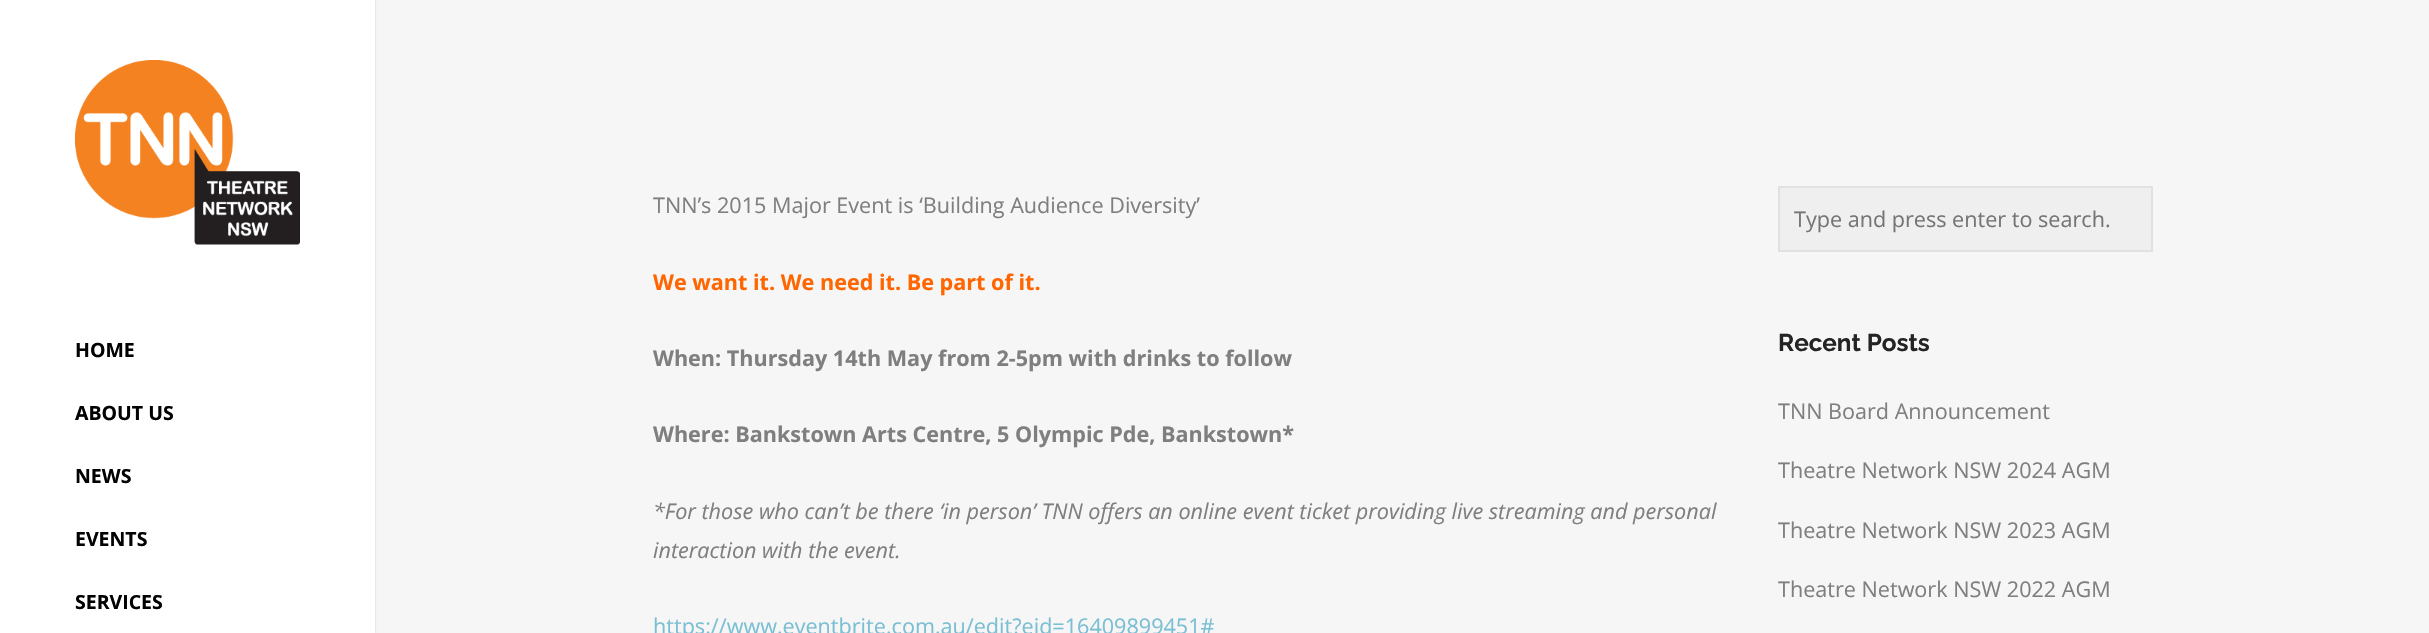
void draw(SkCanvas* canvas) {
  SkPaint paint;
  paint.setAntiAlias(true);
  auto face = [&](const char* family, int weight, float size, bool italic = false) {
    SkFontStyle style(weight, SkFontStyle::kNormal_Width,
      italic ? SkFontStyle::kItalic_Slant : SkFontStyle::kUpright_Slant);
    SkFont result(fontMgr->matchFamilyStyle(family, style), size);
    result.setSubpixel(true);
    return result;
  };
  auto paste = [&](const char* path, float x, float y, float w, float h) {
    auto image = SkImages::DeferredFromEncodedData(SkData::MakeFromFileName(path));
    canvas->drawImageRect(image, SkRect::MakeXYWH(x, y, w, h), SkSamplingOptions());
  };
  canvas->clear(0xfff6f6f6);
  paint.setColor(0x26000000);
  paint.setMaskFilter(SkMaskFilter::MakeBlur(kNormal_SkBlurStyle, 1));
  canvas->drawRect(SkRect::MakeXYWH(0, 0, 375, 633), paint);
  paint.setMaskFilter(nullptr);
  paint.setColor(0xffffffff);
  canvas->drawRect(SkRect::MakeXYWH(0, 0, 375, 633), paint);
  paste("img/1.png", 75, 60, 225, 185);
  paint.setColor(0xffefefef);
  canvas->drawRect(SkRect::MakeXYWH(1779, 187, 373, 64), paint);
  paint.setStroke(true);
  paint.setStrokeWidth(2);
  paint.setColor(0xffe1e1e1);
  canvas->drawRect(SkRect::MakeXYWH(1779, 187, 373, 64), paint);
  auto f0 = face("Open Sans", 700, 19.5f);
  paint.setStroke(false);
  paint.setColor(0xff020202);
  {
    const struct { const char* s; float x, y; } items[] = {
      {"HOME", 75, 357},
      {"ABOUT US", 75, 420},
      {"NEWS", 75, 483},
      {"EVENTS", 75, 546},
      {"SERVICES", 75, 609},
    };
    for (auto [s, x, y] : items) {
      canvas->drawString(s, x, y, f0, paint);
    }
  }
  auto f1 = face("Open Sans", 400, 21.6f);
  paint.setColor(0xff7f7f7f);
  canvas->drawString("TNN’s 2015 Major Event is ‘Building Audience Diversity’", 653, 213, f1, paint);
  auto f2 = face("Open Sans", 700, 21.6f);
  paint.setColor(0xffff6600);
  canvas->drawString("We want it. We need it. Be part of it.", 653, 290, f2, paint);
  paint.setColor(0xff7f7f7f);
  canvas->drawString("When: Thursday 14th May from 2-5pm with drinks to follow", 653, 366, f2, paint);
  canvas->drawString("Where: Bankstown Arts Centre, 5 Olympic Pde, Bankstown*", 653, 442, f2, paint);
  auto f3 = face("Open Sans", 400, 21.6f, true);
  canvas->drawString("*For those who can’t be there ‘in person’ TNN offers an online event ticket providing live streaming and personal", 653, 519, f3, paint);
  canvas->drawString("interaction with the event.", 653, 558, f3, paint);
  paint.setColor(0xff7abfd3);
  canvas->drawString("https://www.eventbrite.com.au/edit?eid=16409899451#", 653, 634, f1, paint);
  paint.setColor(0xff757575);
  canvas->drawString("Type and press enter to search.", 1794, 227, f1, paint);
  auto f4 = face("Raleway", 700, 24.25f);
  paint.setColor(0xff242424);
  canvas->drawString("Recent Posts", 1778, 351, f4, paint);
  paint.setColor(0xff7f7f7f);
  {
    const struct { const char* s; float x, y; } items[] = {
      {"TNN Board Announcement", 1778, 419},
      {"Theatre Network NSW 2024 AGM", 1778, 478},
      {"Theatre Network NSW 2023 AGM", 1778, 538},
      {"Theatre Network NSW 2022 AGM", 1778, 597},
    };
    for (auto [s, x, y] : items) {
      canvas->drawString(s, x, y, f1, paint);
    }
  }
}
